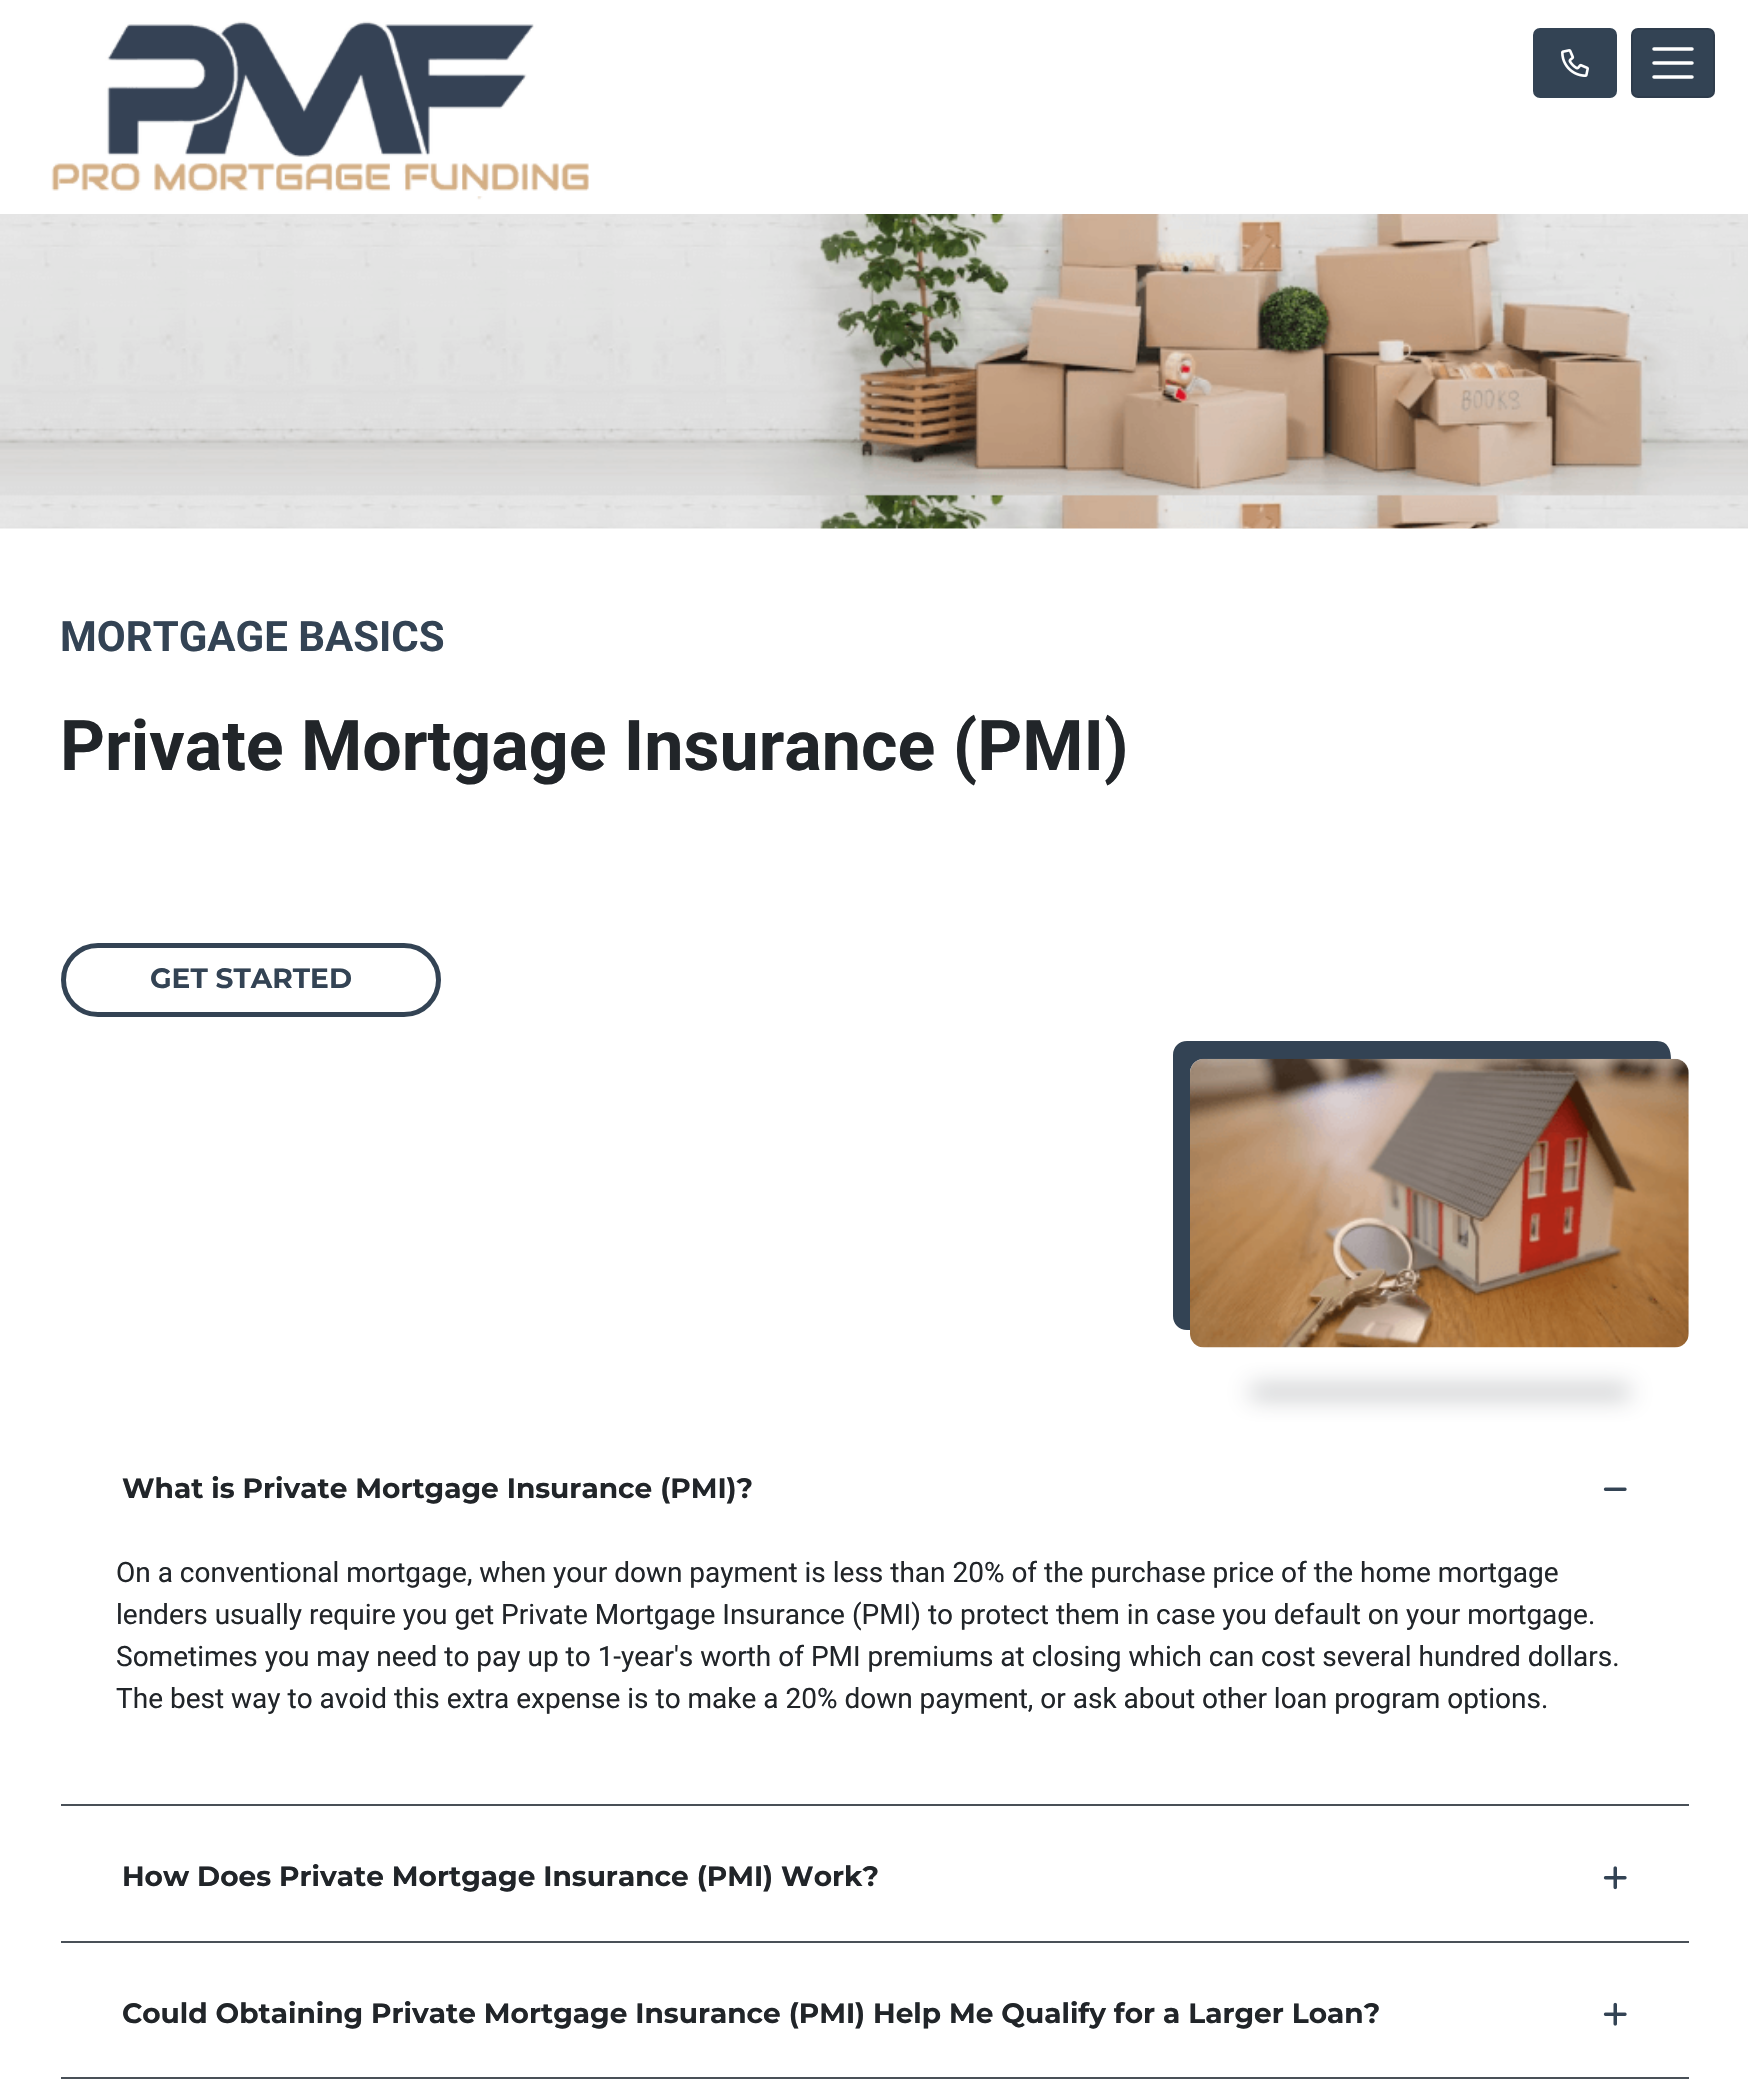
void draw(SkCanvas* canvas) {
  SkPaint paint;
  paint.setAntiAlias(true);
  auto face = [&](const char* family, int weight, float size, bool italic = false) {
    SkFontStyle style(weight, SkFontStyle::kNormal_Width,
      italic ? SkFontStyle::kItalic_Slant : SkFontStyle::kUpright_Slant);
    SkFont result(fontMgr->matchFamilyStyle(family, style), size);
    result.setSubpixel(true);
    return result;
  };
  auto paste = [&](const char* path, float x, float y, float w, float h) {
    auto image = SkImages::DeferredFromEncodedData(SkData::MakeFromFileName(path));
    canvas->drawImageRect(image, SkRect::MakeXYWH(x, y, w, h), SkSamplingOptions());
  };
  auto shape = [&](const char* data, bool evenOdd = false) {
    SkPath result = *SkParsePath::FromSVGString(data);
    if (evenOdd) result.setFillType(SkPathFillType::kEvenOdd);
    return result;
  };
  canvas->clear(0xffffffff);
  paste("img/1.png", 51, 21, 538, 179);
  paint.setColor(0xff334354);
  canvas->drawRoundRect(SkRect::MakeXYWH(1535.5f, 30.5f, 79, 65), 4.5f, 4.5f, paint);
  paint.setStroke(true);
  paint.setStrokeWidth(5);
  canvas->drawRoundRect(SkRect::MakeXYWH(1535.5f, 30.5f, 79, 65), 4.5f, 4.5f, paint);
  paste("img/2.png", 1561, 49, 28, 28);
  paint.setStroke(false);
  canvas->drawRoundRect(SkRect::MakeXYWH(1631, 28, 84, 70), 7, 7, paint);
  paint.setStroke(true);
  paint.setStrokeWidth(2);
  paint.setColor(0x1a000000);
  canvas->drawRoundRect(SkRect::MakeXYWH(1632, 29, 82, 68), 6, 6, paint);
  paint.setStrokeWidth(3.5f);
  paint.setStrokeCap(SkPaint::kRound_Cap);
  paint.setColor(0xffffffff);
  canvas->drawPath(shape("M1654 49H1692M1654 63H1692M1654 77H1692"), paint);
  paste("img/3.png", 0, 214, 1748, 315);
  paint.setStrokeWidth(5);
  paint.setStrokeCap(SkPaint::kButt_Cap);
  paint.setColor(0xff334354);
  canvas->drawRoundRect(SkRect::MakeXYWH(63.5f, 945.5f, 375, 69), 34.5f, 34.5f, paint);
  paint.setStroke(false);
  canvas->drawPath(shape("M1187 1041C1179 1041 1173 1047 1173 1055V1316C1173 1324 1179 1330 1187 1330H1190V1073C1190 1065 1196 1059 1204 1059H1671C1671 1050 1668 1041 1657 1041Z"), paint);
  paste("img/4.png", 1190, 1058, 499, 290);
  paint.setColor(0xff343a40);
  paint.setMaskFilter(SkMaskFilter::MakeBlur(kNormal_SkBlurStyle, 11.5f));
  canvas->drawRect(SkRect::MakeXYWH(1251, 1390, 378, 4), paint);
  paint.setMaskFilter(nullptr);
  paint.setColor(0xff495057);
  canvas->drawRect(SkRect::MakeXYWH(61, 1804, 1628, 2), paint);
  paste("img/5.png", 1603, 1487, 24, 4);
  canvas->drawRect(SkRect::MakeXYWH(61, 1941, 1628, 2), paint);
  paste("img/6.png", 1603, 1866, 24, 24);
  canvas->drawRect(SkRect::MakeXYWH(61, 2077, 1628, 2), paint);
  paste("img/7.png", 1603, 2002, 24, 24);
  auto f0 = face("Roboto", 700, 42);
  paint.setColor(0xff334354);
  canvas->drawString("MORTGAGE BASICS", 60, 651, f0, paint);
  auto f1 = face("Roboto", 700, 70);
  paint.setColor(0xff212529);
  canvas->drawString("Private Mortgage Insurance (PMI)", 60, 770, f1, paint);
  auto f2 = face("Montserrat", 700, 28);
  paint.setColor(0xff334354);
  canvas->drawString("GET STARTED", 150, 988, f2, paint);
  paint.setColor(0xff212529);
  canvas->drawString("What is Private Mortgage Insurance (PMI)?", 122, 1498, f2, paint);
  auto f3 = face("Roboto", 400, 28);
  {
    const struct { const char* s; float x, y; } items[] = {
      {"On a conventional mortgage, when your down payment is less than 20% of the purchase price of the home mortgage", 116, 1582},
      {"lenders usually require you get Private Mortgage Insurance (PMI) to protect them in case you default on your mortgage.", 116, 1624},
      {"Sometimes you may need to pay up to 1-year's worth of PMI premiums at closing which can cost several hundred dollars.", 116, 1666},
      {"The best way to avoid this extra expense is to make a 20% down payment, or ask about other loan program options.", 116, 1708},
    };
    for (auto [s, x, y] : items) {
      canvas->drawString(s, x, y, f3, paint);
    }
  }
  canvas->drawString("How Does Private Mortgage Insurance (PMI) Work?", 122, 1886, f2, paint);
  canvas->drawString("Could Obtaining Private Mortgage Insurance (PMI) Help Me Qualify for a Larger Loan?", 122, 2023, f2, paint);
}
